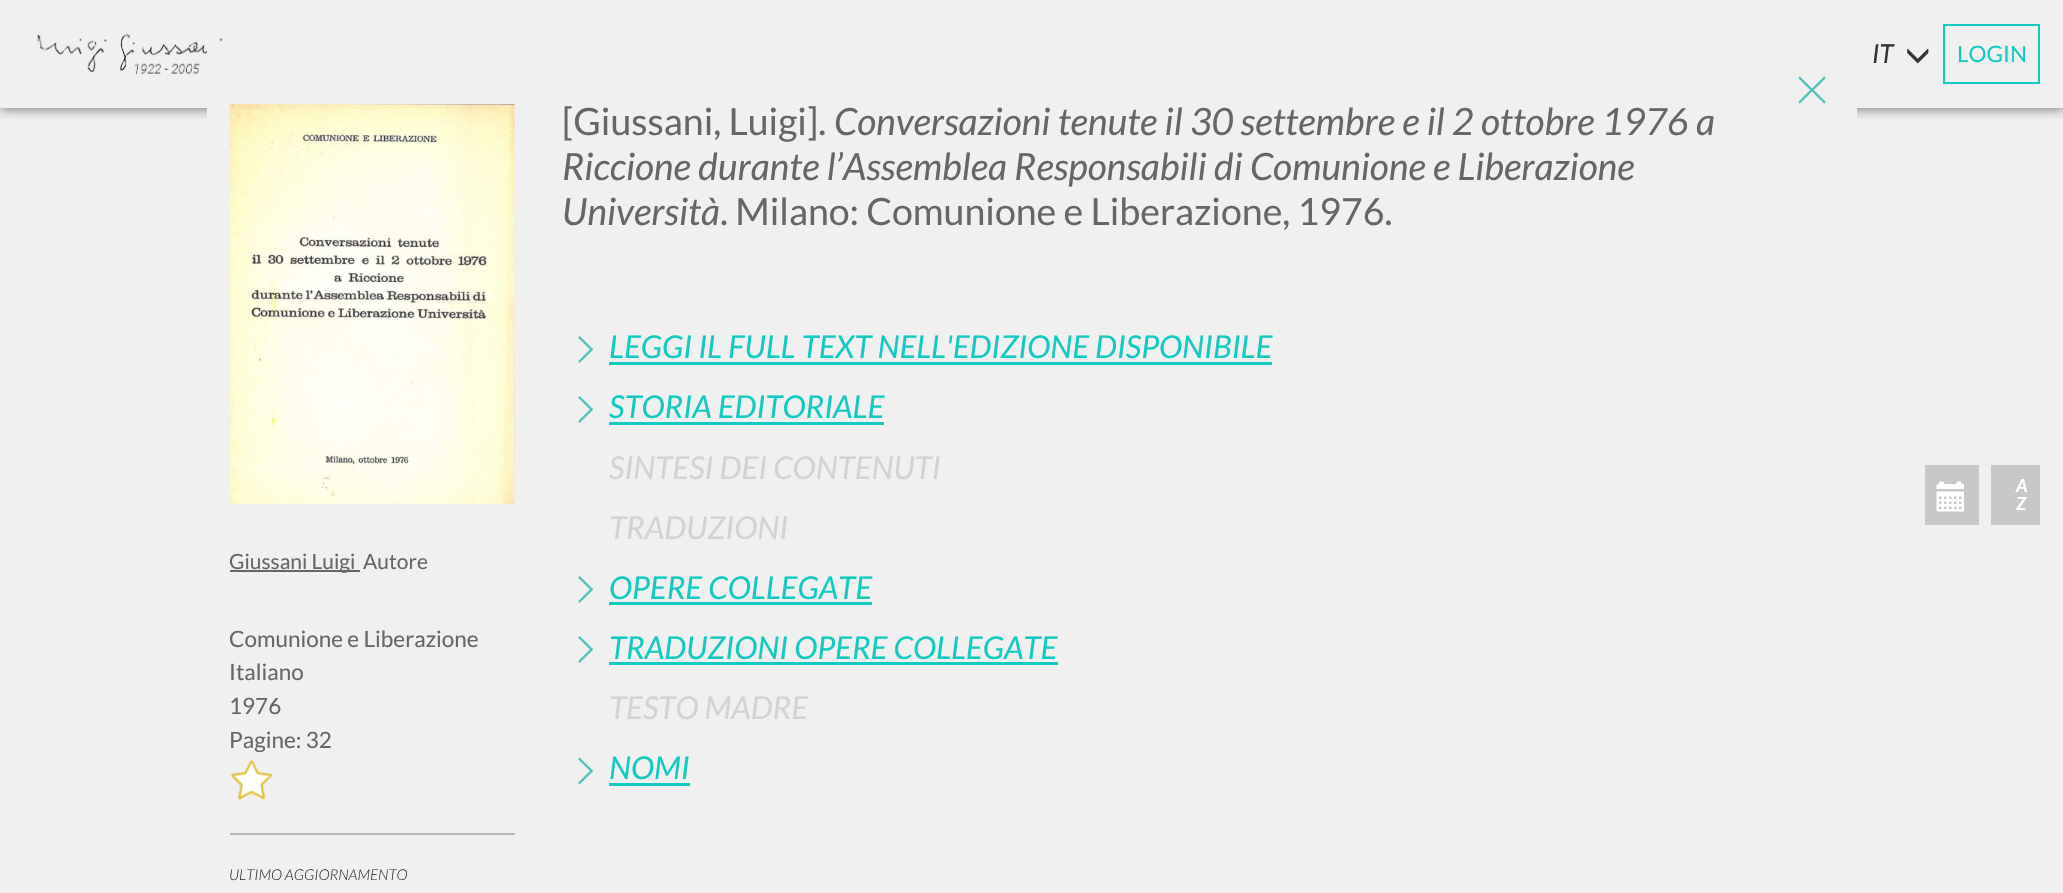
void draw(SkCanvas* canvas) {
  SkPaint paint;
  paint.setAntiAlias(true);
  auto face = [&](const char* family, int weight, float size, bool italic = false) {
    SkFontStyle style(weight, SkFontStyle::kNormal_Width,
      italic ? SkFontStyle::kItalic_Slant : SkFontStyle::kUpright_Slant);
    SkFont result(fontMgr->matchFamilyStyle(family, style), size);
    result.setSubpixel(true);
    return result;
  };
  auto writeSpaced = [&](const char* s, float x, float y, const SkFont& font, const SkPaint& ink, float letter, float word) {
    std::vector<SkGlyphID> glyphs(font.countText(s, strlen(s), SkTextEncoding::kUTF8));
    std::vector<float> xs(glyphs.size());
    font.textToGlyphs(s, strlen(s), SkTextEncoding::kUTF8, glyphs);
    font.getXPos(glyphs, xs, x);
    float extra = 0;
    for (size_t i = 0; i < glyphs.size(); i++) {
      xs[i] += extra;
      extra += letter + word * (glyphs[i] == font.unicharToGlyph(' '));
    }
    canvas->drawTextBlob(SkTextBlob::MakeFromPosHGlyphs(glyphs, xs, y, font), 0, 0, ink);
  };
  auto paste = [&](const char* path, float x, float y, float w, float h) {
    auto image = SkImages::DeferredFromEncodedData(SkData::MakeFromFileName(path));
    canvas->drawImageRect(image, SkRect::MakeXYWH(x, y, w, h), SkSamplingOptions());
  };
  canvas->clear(0xfff0f0f0);
  canvas->save();
  canvas->clipRect(SkRect::MakeXYWH(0, 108, 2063, 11));
  paint.setColor(0x99000000);
  paint.setMaskFilter(SkMaskFilter::MakeBlur(kNormal_SkBlurStyle, 6));
  canvas->drawRect(SkRect::MakeXYWH(0, 0, 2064, 108), paint);
  paint.setMaskFilter(nullptr);
  canvas->restore();
  paste("img/6.png", 36, 33, 187, 41);
  paint.setColor(0xfff0f0f0);
  canvas->drawRect(SkRect::MakeXYWH(207, 47, 1650, 74), paint);
  paste("img/1.png", 1798, 76, 28, 28);
  paste("img/2.png", 229, 104, 286, 400);
  paint.setColor(0xff666666);
  canvas->drawRect(SkRect::MakeXYWH(230, 570, 130, 2), paint);
  paste("img/3.png", 230, 759, 43, 41);
  paint.setColor(0xffb7b7b7);
  canvas->drawRect(SkRect::MakeXYWH(230, 833, 285, 2), paint);
  paste("img/4.png", 578, 336, 16, 27);
  paint.setColor(0xff12cac0);
  canvas->drawRect(SkRect::MakeXYWH(609, 362, 663, 3), paint);
  paste("img/4.png", 578, 396, 16, 27);
  canvas->drawRect(SkRect::MakeXYWH(609, 422, 275, 3), paint);
  paste("img/4.png", 578, 576, 16, 27);
  canvas->drawRect(SkRect::MakeXYWH(609, 602, 263, 3), paint);
  paste("img/4.png", 578, 636, 16, 27);
  canvas->drawRect(SkRect::MakeXYWH(609, 662, 449, 3), paint);
  paste("img/5.png", 577, 757, 17, 28);
  canvas->drawRect(SkRect::MakeXYWH(609, 783, 81, 3), paint);
  paste("img/7.png", 1907, 48, 22, 16);
  paint.setStroke(true);
  paint.setStrokeWidth(2);
  canvas->drawRect(SkRect::MakeXYWH(1944, 25, 95, 58), paint);
  paint.setStroke(false);
  paint.setColor(0xffc8c8c8);
  canvas->drawRect(SkRect::MakeXYWH(1925, 465, 54, 60), paint);
  paste("img/8.png", 1936, 481, 28, 31);
  canvas->drawRect(SkRect::MakeXYWH(1991, 465, 49, 60), paint);
  auto f0 = face("Lato", 400, 21);
  paint.setColor(0xff666666);
  canvas->drawString("Giussani Luigi", 229, 569, f0, paint);
  canvas->drawString("Autore", 363, 569, f0, paint);
  auto f1 = face("Lato", 400, 22.5f);
  {
    const struct { const char* s; float x, y; } items[] = {
      {"Comunione e Liberazione", 229, 647},
      {"Italiano", 229, 680},
      {"1976", 229, 714},
      {"Pagine: 32", 229, 748},
    };
    for (auto [s, x, y] : items) {
      canvas->drawString(s, x, y, f1, paint);
    }
  }
  auto f2 = face("Lato", 300, 15, true);
  paint.setColor(0xff333333);
  canvas->drawString("ULTIMO AGGIORNAMENTO", 229, 880, f2, paint);
  auto f3 = face("Lato", 400, 37.5f);
  paint.setColor(0xff666666);
  canvas->drawString("[Giussani, Luigi].", 562, 135, f3, paint);
  auto f4 = face("Lato", 400, 37.5f, true);
  {
    const struct { const char* s; float x, y; } items[] = {
      {"Conversazioni tenute il 30 settembre e il 2 ottobre 1976 a", 834, 135},
      {"Riccione durante l’Assemblea Responsabili di Comunione e Liberazione", 562, 180},
      {"Università", 562, 225},
    };
    for (auto [s, x, y] : items) {
      canvas->drawString(s, x, y, f4, paint);
    }
  }
  canvas->drawString(". Milano: Comunione e Liberazione, 1976.", 720, 225, f3, paint);
  auto f5 = face("Lato", 400, 31.5f, true);
  paint.setColor(0xff12cac0);
  canvas->drawString("LEGGI IL FULL TEXT NELL'EDIZIONE DISPONIBILE", 609, 358, f5, paint);
  canvas->drawString("STORIA EDITORIALE", 609, 418, f5, paint);
  paint.setColor(0xffd3d3d3);
  canvas->drawString("SINTESI DEI CONTENUTI", 609, 479, f5, paint);
  canvas->drawString("TRADUZIONI", 609, 539, f5, paint);
  paint.setColor(0xff12cac0);
  canvas->drawString("OPERE COLLEGATE", 609, 599, f5, paint);
  canvas->drawString("TRADUZIONI OPERE COLLEGATE", 609, 659, f5, paint);
  paint.setColor(0xffd3d3d3);
  canvas->drawString("TESTO MADRE", 609, 719, f5, paint);
  paint.setColor(0xff12cac0);
  canvas->drawString("NOMI", 609, 779, f5, paint);
  auto f6 = face("Lato", 400, 26, true);
  paint.setColor(0xff333333);
  canvas->drawString("IT", 1872, 63, f6, paint);
  paint.setColor(0xff12cac0);
  canvas->drawString("LOGIN", 1957, 62, f1, paint);
  auto f7 = face("Lato", 700, 18, true);
  paint.setColor(0xffffffff);
  writeSpaced("A", 2016, 492, f7, paint, 1, 0);
  writeSpaced("Z", 2016, 510, f7, paint, 1, 0);
}
